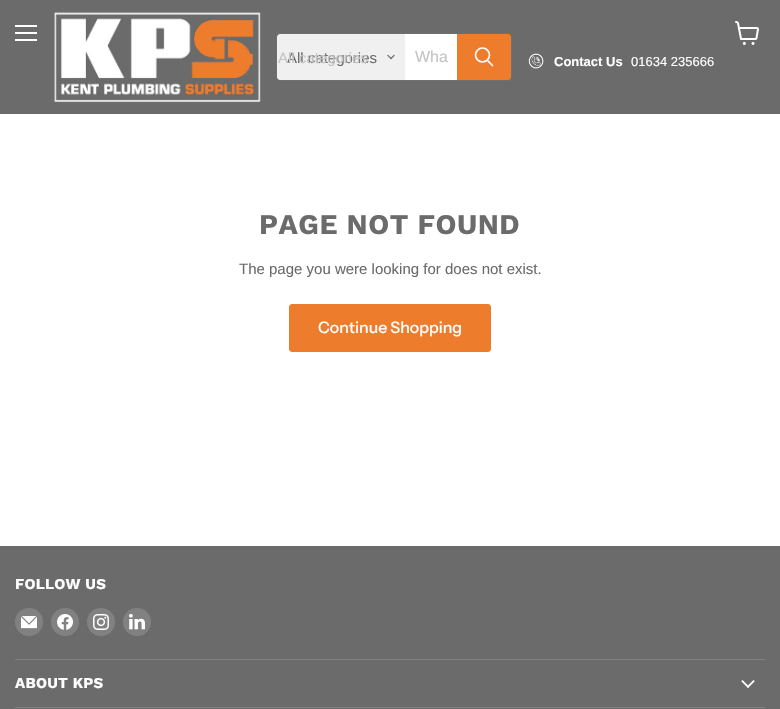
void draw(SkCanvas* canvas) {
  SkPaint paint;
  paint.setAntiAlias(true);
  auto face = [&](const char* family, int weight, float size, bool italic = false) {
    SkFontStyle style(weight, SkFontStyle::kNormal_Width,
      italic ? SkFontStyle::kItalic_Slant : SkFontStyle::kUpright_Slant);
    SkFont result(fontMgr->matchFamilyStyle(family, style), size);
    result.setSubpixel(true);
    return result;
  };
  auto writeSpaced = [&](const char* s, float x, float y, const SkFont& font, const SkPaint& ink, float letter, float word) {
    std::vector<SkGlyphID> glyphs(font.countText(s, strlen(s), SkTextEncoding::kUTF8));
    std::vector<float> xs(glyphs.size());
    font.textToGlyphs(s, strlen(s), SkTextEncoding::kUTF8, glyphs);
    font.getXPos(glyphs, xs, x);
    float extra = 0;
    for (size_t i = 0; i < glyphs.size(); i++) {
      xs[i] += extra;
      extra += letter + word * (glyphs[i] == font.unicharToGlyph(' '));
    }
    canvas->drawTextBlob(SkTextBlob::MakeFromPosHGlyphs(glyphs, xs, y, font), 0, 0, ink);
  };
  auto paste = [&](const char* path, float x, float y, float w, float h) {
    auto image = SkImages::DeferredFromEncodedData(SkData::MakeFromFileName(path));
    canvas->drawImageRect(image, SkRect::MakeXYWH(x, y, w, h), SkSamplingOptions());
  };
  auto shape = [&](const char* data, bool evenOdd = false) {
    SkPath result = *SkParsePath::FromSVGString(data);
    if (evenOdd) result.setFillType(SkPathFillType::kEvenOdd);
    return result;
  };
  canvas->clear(0xffffffff);
  {
    const struct { float x, y, w, h; SkColor color; } items[] = {
      {0, 0, 780, 114, 0xff6b6b6b},
      {15, 25, 22, 2, 0xffffffff},
      {15, 32, 22, 2, 0xffffffff},
      {15, 39, 22, 2, 0xffffffff},
    };
    for (auto [x, y, w, h, color] : items) {
      paint.setColor(color);
      canvas->drawRect(SkRect::MakeXYWH(x, y, w, h), paint);
    }
  }
  paste("img/1.png", 735, 21, 24, 24);
  paste("img/2.png", 54, 12, 207, 91);
  paint.setStroke(true);
  paint.setStrokeWidth(1);
  paint.setColor(0xff6f6f6f);
  canvas->drawRoundRect(SkRect::MakeXYWH(276.5f, 33.5f, 235, 47), 3.5f, 3.5f, paint);
  paint.setStroke(false);
  paint.setColor(0xfff0f0f0);
  canvas->drawPath(shape("M280 34H405V80H280C278.5 80 277 78.5 277 77V37C277 35.5 278.5 34 280 34Z"), paint);
  paste("img/3.png", 387, 54, 8, 6);
  paint.setColor(0xffffffff);
  canvas->drawRect(SkRect::MakeXYWH(405, 34, 52, 46), paint);
  paint.setColor(0xffed7c2c);
  canvas->drawPath(shape("M457.5 34.5H508C509.5 34.5 510.5 35.5 510.5 37V77C510.5 78.5 509.5 79.5 508 79.5H457.5Z"), paint);
  paint.setStroke(true);
  canvas->drawPath(shape("M457.5 34.5H508C509.5 34.5 510.5 35.5 510.5 37V77C510.5 78.5 509.5 79.5 508 79.5H457.5Z"), paint);
  paint.setStrokeWidth(1.7f);
  paint.setStrokeCap(SkPaint::kRound_Cap);
  paint.setColor(0xffffffff);
  canvas->drawPath(shape("M492.5 65.5L487.5 60.5"), paint);
  paint.setStrokeCap(SkPaint::kButt_Cap);
  canvas->drawCircle(482.5f, 55, 7, paint);
  paste("img/4.png", 528, 53, 16, 16);
  paint.setStroke(false);
  paint.setColor(0xffed7c2c);
  canvas->drawRoundRect(SkRect::MakeXYWH(289.5f, 304.5f, 201, 47), 2.5f, 2.5f, paint);
  paint.setStroke(true);
  paint.setStrokeWidth(1);
  canvas->drawRoundRect(SkRect::MakeXYWH(289.5f, 304.5f, 201, 47), 2.5f, 2.5f, paint);
  paint.setStroke(false);
  paint.setColor(0xff6b6b6b);
  canvas->drawRect(SkRect::MakeXYWH(0, 546, 780, 163), paint);
  paint.setColor(0xff818181);
  canvas->drawRect(SkRect::MakeXYWH(15, 659, 750, 1), paint);
  canvas->drawCircle(29, 622, 14, paint);
  paste("img/5.png", 21, 616, 16, 13);
  canvas->drawCircle(65, 622, 14, paint);
  paste("img/6.png", 57, 614, 16, 16);
  canvas->drawCircle(101, 622, 14, paint);
  paste("img/7.png", 93, 614, 16, 16);
  canvas->drawCircle(137, 622, 14, paint);
  paste("img/8.png", 129, 614, 16, 16);
  canvas->drawRect(SkRect::MakeXYWH(15, 707, 750, 1), paint);
  paste("img/9.png", 741, 680, 14, 8);
  auto f0 = face("Liberation Sans", 400, 15);
  paint.setColor(0xff6b6b6b);
  canvas->drawString("All categories", 287, 63, f0, paint);
  paint.setColor(0xffc4c4c4);
  canvas->drawString("All categories", 278, 63, f0, paint);
  auto f1 = face("Liberation Sans", 400, 16);
  canvas->drawString("Wha", 415, 62, f1, paint);
  auto f2 = face("Liberation Sans", 700, 13);
  paint.setColor(0xffffffff);
  canvas->drawString("Contact Us", 554, 66, f2, paint);
  auto f3 = face("Liberation Sans", 400, 13);
  canvas->drawString("01634 235666", 631, 66, f3, paint);
  auto f4 = face("Work Sans", 700, 28.5f);
  paint.setColor(0xff6b6b6b);
  writeSpaced("PAGE NOT FOUND", 259, 234, f4, paint, 0.5f, 0);
  canvas->drawString("The page you were looking for does not exist.", 239, 274, f0, paint);
  auto f5 = face("Instrument Sans", 500, 15.9f);
  paint.setColor(0xffffffff);
  canvas->drawString("Continue Shopping", 318, 333, f5, paint);
  auto f6 = face("Work Sans", 700, 15);
  writeSpaced("FOLLOW US", 15, 589, f6, paint, 0.25f, 0);
  writeSpaced("ABOUT KPS", 15, 688, f6, paint, 0.25f, 0);
}
